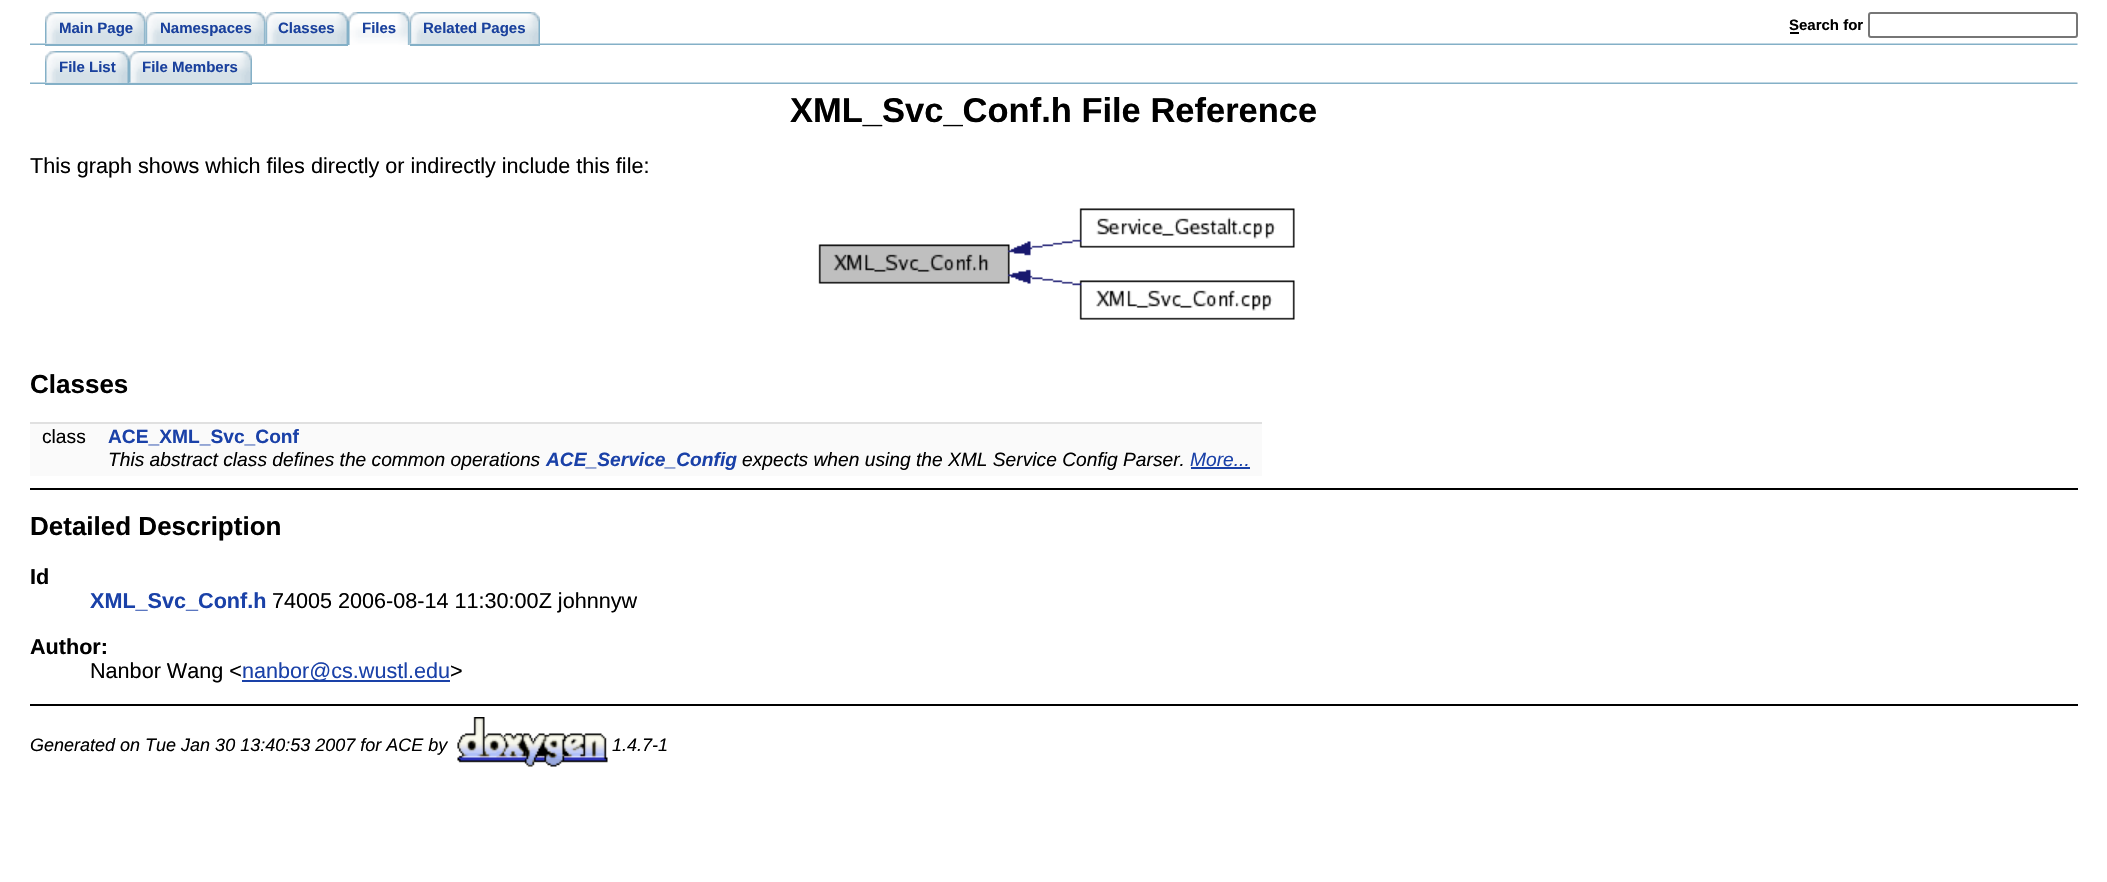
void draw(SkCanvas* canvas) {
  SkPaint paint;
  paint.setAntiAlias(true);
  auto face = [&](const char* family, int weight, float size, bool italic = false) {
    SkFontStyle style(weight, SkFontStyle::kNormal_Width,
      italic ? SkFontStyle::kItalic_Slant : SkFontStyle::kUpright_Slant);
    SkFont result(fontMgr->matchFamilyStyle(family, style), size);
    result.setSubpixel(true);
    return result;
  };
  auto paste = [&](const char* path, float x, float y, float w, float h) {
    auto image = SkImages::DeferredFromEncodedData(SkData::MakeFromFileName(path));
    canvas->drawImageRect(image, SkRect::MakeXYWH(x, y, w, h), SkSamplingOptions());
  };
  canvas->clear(0xffffffff);
  paste("img/1.png", 30, 43, 2048, 2);
  paste("img/2.png", 45, 12, 101, 32);
  paint.setColor(0xff84b0c7);
  canvas->drawRect(SkRect::MakeXYWH(45, 45, 101, 1), paint);
  paste("img/3.png", 45, 12, 11, 32);
  paste("img/4.png", 145, 12, 121, 33);
  canvas->drawRect(SkRect::MakeXYWH(146, 44, 120, 2), paint);
  paste("img/5.png", 145, 12, 12, 32);
  paste("img/6.png", 265, 12, 83, 33);
  canvas->drawRect(SkRect::MakeXYWH(266, 44, 82, 2), paint);
  paste("img/5.png", 265, 12, 12, 32);
  paste("img/7.png", 358, 12, 52, 33);
  paste("img/8.png", 348, 12, 10, 33);
  paste("img/9.png", 409, 12, 131, 33);
  canvas->drawRect(SkRect::MakeXYWH(410, 44, 130, 2), paint);
  paste("img/10.png", 409, 12, 12, 32);
  paint.setColor(0xff000000);
  canvas->drawRect(SkRect::MakeXYWH(1790, 32, 9, 2), paint);
  paint.setStroke(true);
  paint.setStrokeWidth(2);
  paint.setColor(0xff767676);
  canvas->drawRoundRect(SkRect::MakeXYWH(1869, 13, 208, 24), 2, 2, paint);
  paste("img/1.png", 30, 82, 2048, 2);
  paste("img/11.png", 45, 51, 84, 32);
  paint.setStroke(false);
  paint.setColor(0xff84b0c7);
  canvas->drawRect(SkRect::MakeXYWH(45, 84, 207, 1), paint);
  paste("img/3.png", 45, 51, 11, 32);
  paste("img/12.png", 129, 51, 123, 32);
  paste("img/3.png", 129, 51, 11, 32);
  paste("img/13.png", 818, 208, 477, 112);
  {
    const struct { float x, y, w, h; SkColor color; } items[] = {
      {30, 424, 1232, 23, 0xfffafafa},
      {30, 422, 1232, 2, 0xffe0e0e0},
      {30, 447, 1232, 29, 0xfffafafa},
      {1191, 467, 59, 2, 0xff1a41a8},
      {30, 488, 2048, 2, 0xff000000},
      {242, 680, 208, 2, 0xff1a41a8},
      {30, 704, 2048, 2, 0xff000000},
    };
    for (auto [x, y, w, h, color] : items) {
      paint.setColor(color);
      canvas->drawRect(SkRect::MakeXYWH(x, y, w, h), paint);
    }
  }
  paste("img/14.png", 457, 717, 151, 50);
  auto f0 = face("Liberation Sans", 700, 15);
  paint.setColor(0xff1a419d);
  {
    const struct { const char* s; float x, y; } items[] = {
      {"Main Page", 59, 33},
      {"Namespaces", 160, 33},
      {"Classes", 278, 33},
      {"Files", 362, 33},
      {"Related Pages", 423, 33},
    };
    for (auto [s, x, y] : items) {
      canvas->drawString(s, x, y, f0, paint);
    }
  }
  paint.setColor(0xff000000);
  canvas->drawString("Search for", 1789, 30, f0, paint);
  paint.setColor(0xff1a419d);
  canvas->drawString("File List", 59, 72, f0, paint);
  canvas->drawString("File Members", 142, 72, f0, paint);
  auto f1 = face("Liberation Sans", 700, 34.5f);
  paint.setColor(0xff000000);
  canvas->drawString("XML_Svc_Conf.h File Reference", 790, 122, f1, paint);
  auto f2 = face("Liberation Sans", 400, 21.6f);
  canvas->drawString("This graph shows which files directly or indirectly include this file:", 30, 173, f2, paint);
  auto f3 = face("Liberation Sans", 700, 26);
  canvas->drawString("Classes", 30, 393, f3, paint);
  auto f4 = face("Liberation Sans", 400, 19.2f);
  canvas->drawString("class", 42, 443, f4, paint);
  auto f5 = face("Liberation Sans", 700, 19.2f);
  paint.setColor(0xff1a41a8);
  canvas->drawString("ACE_XML_Svc_Conf", 108, 443, f5, paint);
  auto f6 = face("Liberation Sans", 400, 19.2f, true);
  paint.setColor(0xff000000);
  canvas->drawString("This abstract class defines the common operations", 108, 466, f6, paint);
  auto f7 = face("Liberation Sans", 700, 19.2f, true);
  paint.setColor(0xff1a41a8);
  canvas->drawString("ACE_Service_Config", 546, 466, f7, paint);
  paint.setColor(0xff000000);
  canvas->drawString("expects when using the XML Service Config Parser.", 742, 466, f6, paint);
  paint.setColor(0xff1a41a8);
  canvas->drawString("More...", 1190, 466, f6, paint);
  paint.setColor(0xff000000);
  canvas->drawString("Detailed Description", 30, 535, f3, paint);
  auto f8 = face("Liberation Sans", 700, 21.6f);
  canvas->drawString("Id", 30, 584, f8, paint);
  paint.setColor(0xff1a41a8);
  canvas->drawString("XML_Svc_Conf.h", 90, 608, f8, paint);
  paint.setColor(0xff000000);
  canvas->drawString("74005 2006-08-14 11:30:00Z johnnyw", 272, 608, f2, paint);
  canvas->drawString("Author:", 30, 654, f8, paint);
  canvas->drawString("Nanbor Wang <", 90, 678, f2, paint);
  paint.setColor(0xff1a41a8);
  canvas->drawString("nanbor@cs.wustl.edu", 242, 678, f2, paint);
  paint.setColor(0xff000000);
  canvas->drawString(">", 450, 678, f2, paint);
  auto f9 = face("Liberation Sans", 400, 18, true);
  canvas->drawString("Generated on Tue Jan 30 13:40:53 2007 for ACE by", 30, 751, f9, paint);
  canvas->drawString("1.4.7-1", 612, 751, f9, paint);
}
